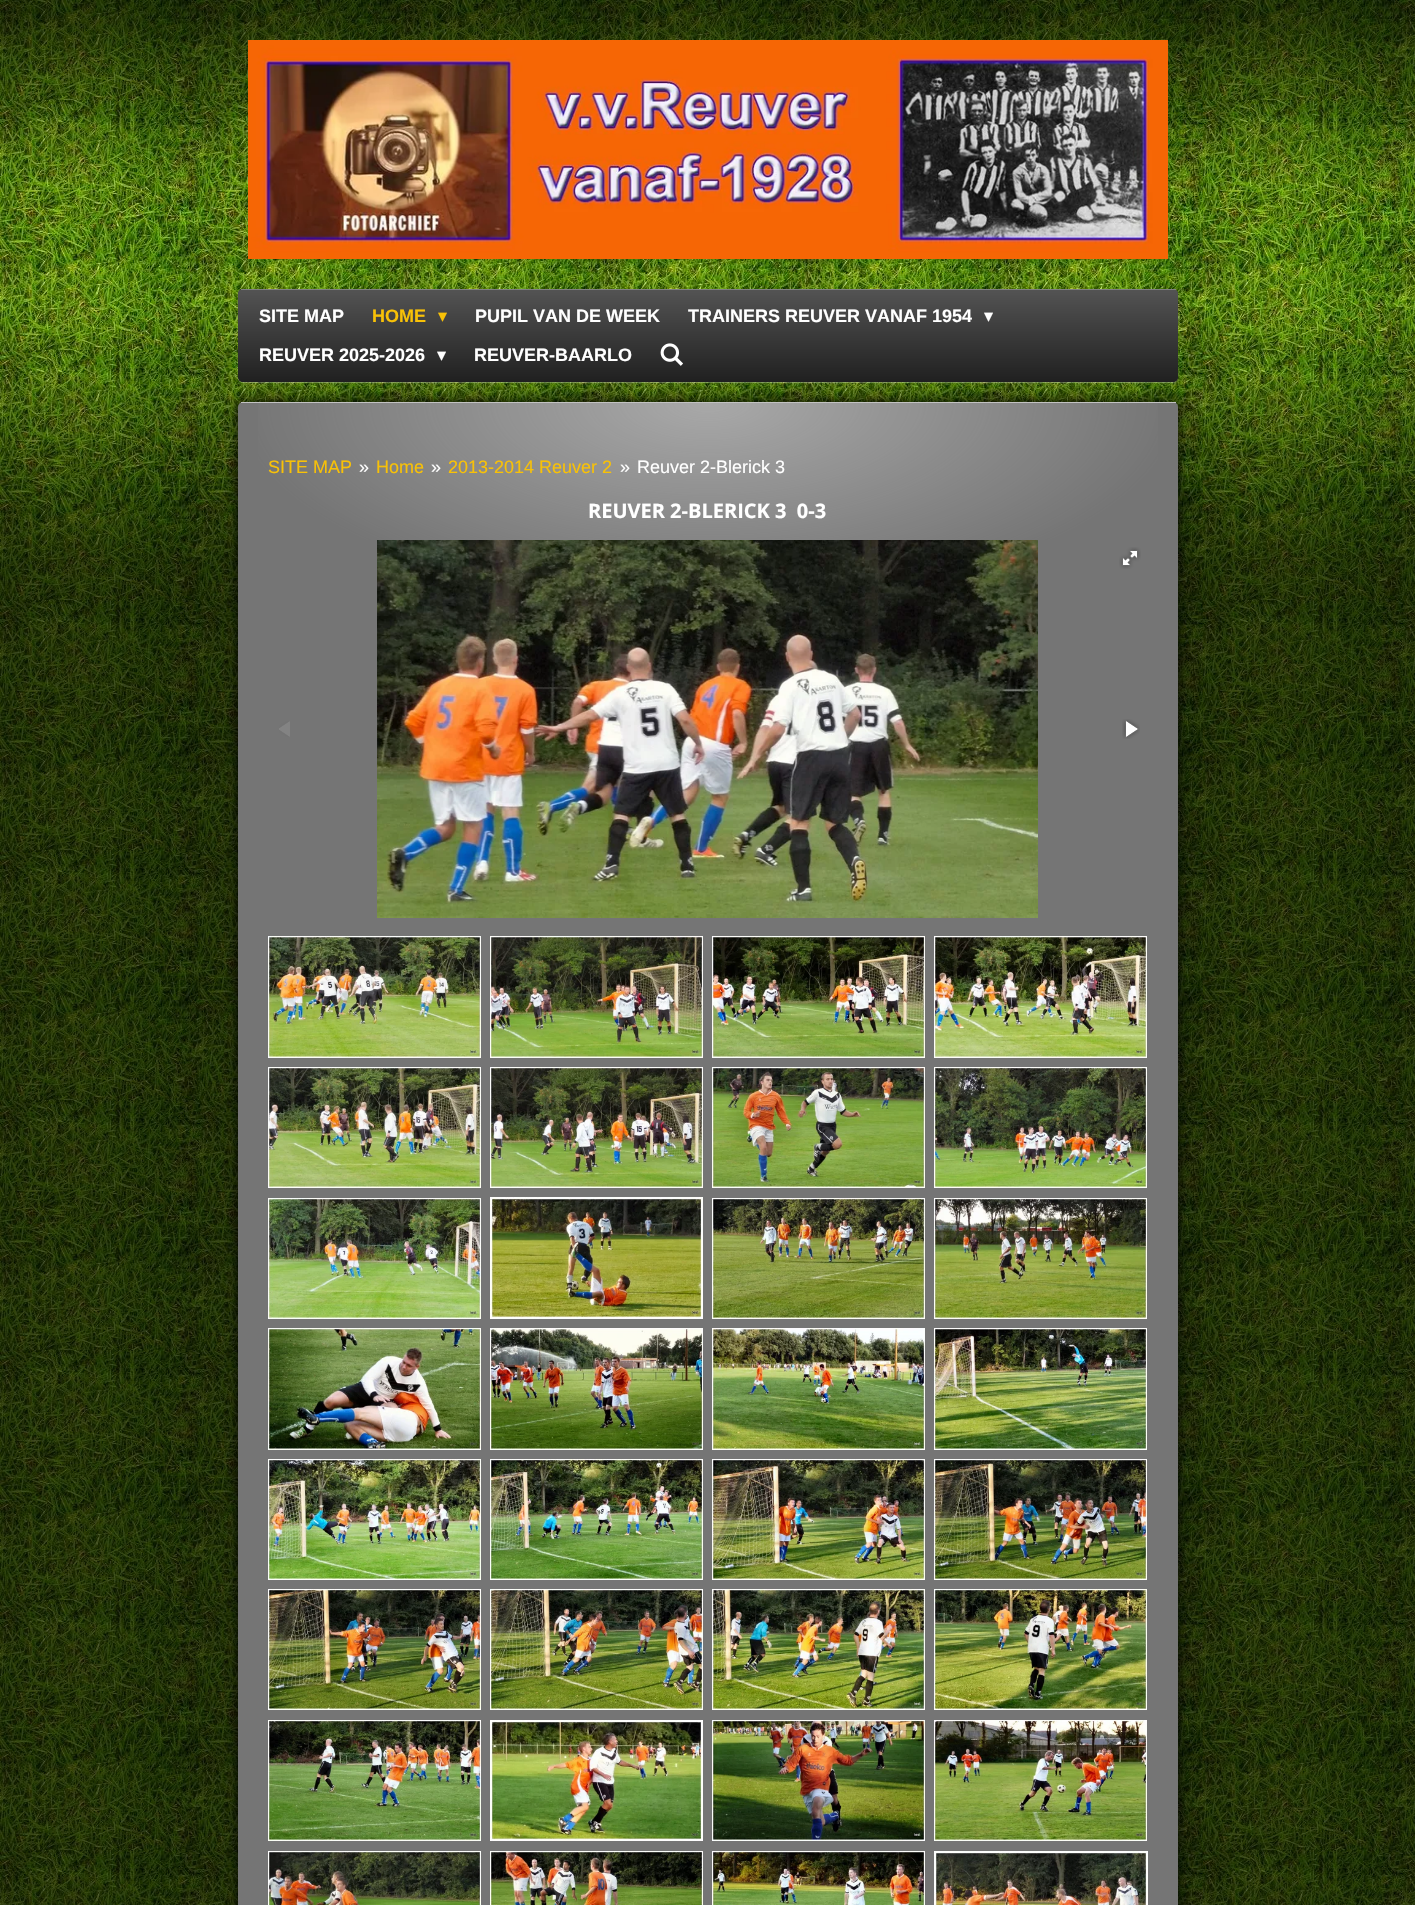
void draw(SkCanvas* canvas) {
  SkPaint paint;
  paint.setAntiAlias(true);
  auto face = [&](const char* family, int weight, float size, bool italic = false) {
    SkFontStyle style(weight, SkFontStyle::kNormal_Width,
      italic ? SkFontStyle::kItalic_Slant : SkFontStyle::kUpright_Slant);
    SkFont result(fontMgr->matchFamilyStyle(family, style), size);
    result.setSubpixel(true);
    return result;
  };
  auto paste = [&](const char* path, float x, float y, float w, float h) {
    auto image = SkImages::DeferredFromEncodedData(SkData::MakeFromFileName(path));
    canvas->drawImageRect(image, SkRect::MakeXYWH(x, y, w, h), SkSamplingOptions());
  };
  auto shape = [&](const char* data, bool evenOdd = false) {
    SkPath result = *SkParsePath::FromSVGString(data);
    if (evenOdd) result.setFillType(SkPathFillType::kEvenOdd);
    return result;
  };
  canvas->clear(0xffffffff);
  paste("img/1.png", 0, 0, 1415, 1905);
  paint.setColor(0x99000000);
  canvas->drawRect(SkRect::MakeXYWH(0, 0, 1415, 20), paint);
  paste("img/2.png", 248, 40, 920, 219);
  paint.setColor(0x4dffffff);
  paint.setMaskFilter(SkMaskFilter::MakeBlur(kNormal_SkBlurStyle, 0.5f));
  canvas->drawRoundRect(SkRect::MakeXYWH(238, 290, 940, 93), 5, 5, paint);
  paint.setMaskFilter(nullptr);
  paint.setColor(0xff202020);
  canvas->drawRoundRect(SkRect::MakeXYWH(238, 289, 940, 93), 5, 5, paint);
  canvas->save();
  canvas->clipPath(shape("M243 289H1173C1176 289 1178 291 1178 294V377C1178 380 1176 382 1173 382H243C240 382 238 380 238 377V294C238 291 240 289 243 289Z"), true);
  {
    const SkColor colors[] = {0xff202020, 0xff535353};
    const float stops[] = {0, 1};
    const SkPoint ends[] = {{708, 290}, {708, 198}};
    paint.setShader(SkGradientShader::MakeLinear(ends, colors, stops, 2, SkTileMode::kClamp));
    paint.setAlpha(255);
  }
  canvas->drawRect(SkRect::MakeXYWH(238, 289, 3, 1), paint);
  {
    const SkColor colors[] = {0xff202020, 0xff535353};
    const float stops[] = {0, 1};
    const SkPoint ends[] = {{708, 382}, {708, 290}};
    paint.setShader(SkGradientShader::MakeLinear(ends, colors, stops, 2, SkTileMode::kClamp));
    paint.setAlpha(255);
  }
  canvas->drawPath(shape("M238 290H1178V377C1178 380 1176 382 1173 382H243C240 382 238 380 238 377Z"), paint);
  canvas->restore();
  paint.setShader(nullptr);
  paint.setColor(0xff818181);
  canvas->drawRect(SkRect::MakeXYWH(241, 289, 935, 1), paint);
  paste("img/3.png", 660, 343, 23, 23);
  paint.setColor(0x99000000);
  canvas->drawRect(SkRect::MakeXYWH(0, 560, 1415, 1345), paint);
  paint.setColor(0xff000000);
  paint.setMaskFilter(SkMaskFilter::MakeBlur(kNormal_SkBlurStyle, 7.5f));
  canvas->drawRoundRect(SkRect::MakeXYWH(238, 402, 940, 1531), 5, 5, paint);
  paint.setMaskFilter(nullptr);
  paint.setColor(0xff757575);
  canvas->drawRoundRect(SkRect::MakeXYWH(238, 402, 940, 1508), 5, 5, paint);
  paint.setColor(0xffc2c2c2);
  canvas->drawRect(SkRect::MakeXYWH(241, 402, 935, 1), paint);
  {
    const SkColor colors[] = {0xffa8a8a8, 0x00a8a8a8};
    const float stops[] = {0, 1};
    SkMatrix m = SkMatrix::Translate(708, 403).preScale(470, 200);
    paint.setShader(SkGradientShader::MakeRadial({0, 0}, 1, colors, stops, 2, SkTileMode::kClamp, 0, &m));
    paint.setAlpha(255);
  }
  canvas->drawRect(SkRect::MakeXYWH(258, 403, 900, 137), paint);
  paste("img/4.png", 377, 540, 661, 378);
  paste("img/5.png", 1119, 547, 22, 22);
  paste("img/6.png", 279, 721, 11, 16);
  paste("img/7.png", 1122, 719, 18, 20);
  paste("img/8.png", 268, 936, 213, 122);
  paste("img/9.png", 490, 936, 213, 122);
  paste("img/10.png", 712, 936, 213, 122);
  paste("img/11.png", 934, 936, 213, 122);
  paste("img/12.png", 268, 1067, 213, 121);
  paste("img/13.png", 490, 1067, 213, 121);
  paste("img/14.png", 712, 1067, 213, 121);
  paste("img/15.png", 934, 1067, 213, 121);
  paste("img/16.png", 268, 1198, 213, 121);
  paste("img/17.png", 490, 1197, 213, 122);
  paste("img/18.png", 712, 1198, 213, 121);
  paste("img/19.png", 934, 1198, 213, 121);
  paste("img/20.png", 268, 1328, 213, 122);
  paste("img/21.png", 490, 1328, 213, 122);
  paste("img/22.png", 712, 1328, 213, 122);
  paste("img/23.png", 934, 1328, 213, 122);
  paste("img/24.png", 268, 1459, 213, 121);
  paste("img/25.png", 490, 1459, 213, 121);
  paste("img/26.png", 712, 1459, 213, 121);
  paste("img/27.png", 934, 1459, 213, 121);
  paste("img/28.png", 268, 1589, 213, 121);
  paste("img/29.png", 490, 1589, 213, 121);
  paste("img/30.png", 712, 1589, 213, 121);
  paste("img/31.png", 934, 1589, 213, 121);
  paste("img/32.png", 268, 1720, 213, 121);
  paste("img/33.png", 490, 1720, 213, 121);
  paste("img/34.png", 712, 1720, 213, 121);
  paste("img/35.png", 934, 1720, 213, 121);
  paste("img/36.png", 268, 1851, 213, 54);
  paste("img/37.png", 490, 1851, 213, 54);
  paste("img/38.png", 712, 1851, 213, 54);
  paste("img/39.png", 934, 1851, 214, 54);
  auto f0 = face("Liberation Sans", 700, 18);
  paint.setShader(nullptr);
  paint.setColor(0xffffffff);
  canvas->drawString("SITE MAP", 259, 322, f0, paint);
  paint.setColor(0xfff8c107);
  canvas->drawString("HOME", 372, 322, f0, paint);
  auto f1 = face("DejaVu Sans", 400, 18);
  canvas->drawString("▾", 438, 322, f1, paint);
  paint.setColor(0xffffffff);
  canvas->drawString("PUPIL VAN DE WEEK", 475, 322, f0, paint);
  canvas->drawString("TRAINERS REUVER VANAF 1954", 688, 322, f0, paint);
  canvas->drawString("▾", 984, 322, f1, paint);
  canvas->drawString("REUVER 2025-2026", 259, 361, f0, paint);
  canvas->drawString("▾", 437, 361, f1, paint);
  canvas->drawString("REUVER-BAARLO", 474, 361, f0, paint);
  auto f2 = face("Liberation Sans", 400, 18);
  paint.setColor(0xfff8c107);
  canvas->drawString("SITE MAP", 268, 473, f2, paint);
  paint.setColor(0xffffffff);
  canvas->drawString("»", 359, 473, f2, paint);
  paint.setColor(0xfff8c107);
  canvas->drawString("Home", 376, 473, f2, paint);
  paint.setColor(0xffffffff);
  canvas->drawString("»", 431, 473, f2, paint);
  paint.setColor(0xfff8c107);
  canvas->drawString("2013-2014 Reuver 2", 448, 473, f2, paint);
  paint.setColor(0xffffffff);
  canvas->drawString("»", 620, 473, f2, paint);
  canvas->drawString("Reuver 2-Blerick 3", 637, 473, f2, paint);
  auto f3 = face("Open Sans", 700, 20);
  canvas->drawString("REUVER 2-BLERICK 3  0-3", 588, 518, f3, paint);
}
